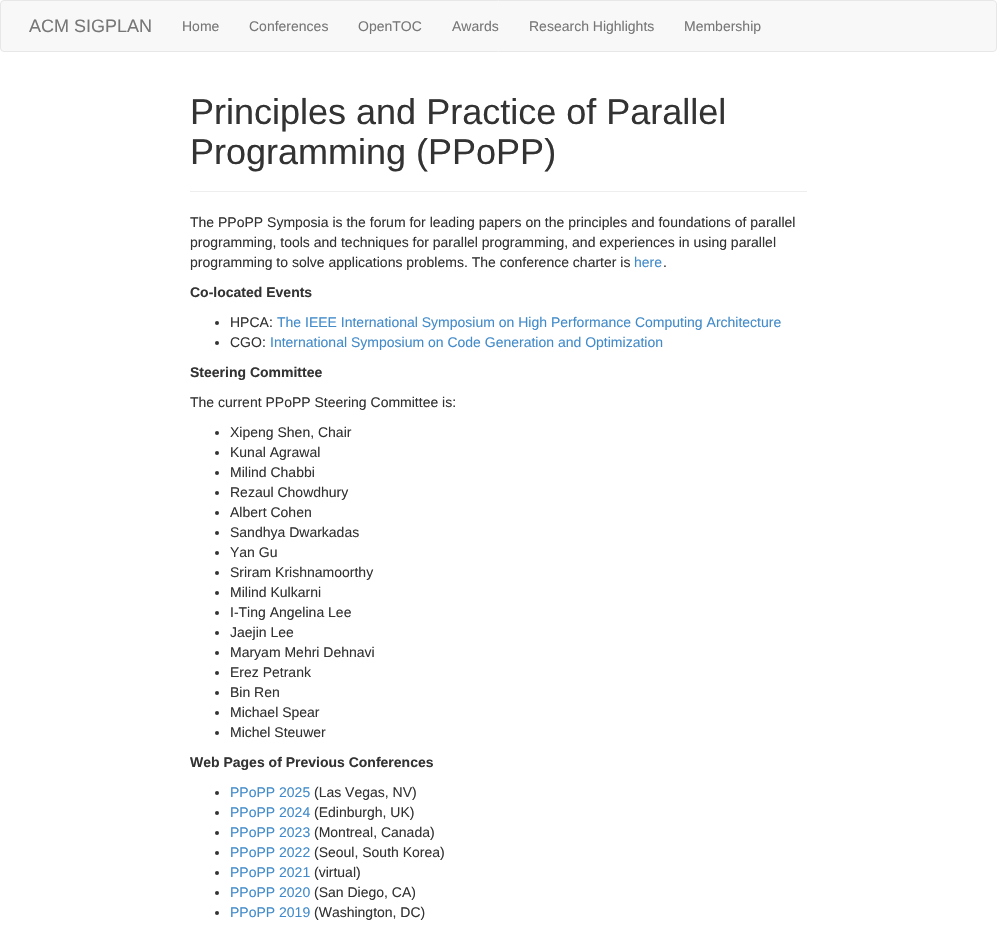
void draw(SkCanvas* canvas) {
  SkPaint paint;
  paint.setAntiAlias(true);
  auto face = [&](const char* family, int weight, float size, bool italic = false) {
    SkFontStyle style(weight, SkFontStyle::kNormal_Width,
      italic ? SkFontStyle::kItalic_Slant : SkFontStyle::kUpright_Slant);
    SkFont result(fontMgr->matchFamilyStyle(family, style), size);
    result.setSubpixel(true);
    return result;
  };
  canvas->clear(0xffffffff);
  paint.setColor(0xfff8f8f8);
  canvas->drawRoundRect(SkRect::MakeXYWH(0.5f, 0.5f, 996, 51), 3.5f, 3.5f, paint);
  paint.setStroke(true);
  paint.setStrokeWidth(1);
  paint.setColor(0xffe7e7e7);
  canvas->drawRoundRect(SkRect::MakeXYWH(0.5f, 0.5f, 996, 51), 3.5f, 3.5f, paint);
  paint.setStroke(false);
  paint.setColor(0xffeeeeee);
  canvas->drawRect(SkRect::MakeXYWH(190, 191, 617, 1), paint);
  paint.setColor(0xff333333);
  canvas->drawCircle(217, 323, 2, paint);
  canvas->drawCircle(217, 343, 2, paint);
  canvas->drawCircle(217, 433, 2, paint);
  canvas->drawCircle(217, 453, 2, paint);
  canvas->drawCircle(217, 473, 2, paint);
  canvas->drawCircle(217, 493, 2, paint);
  canvas->drawCircle(217, 513, 2, paint);
  canvas->drawCircle(217, 533, 2, paint);
  canvas->drawCircle(217, 553, 2, paint);
  canvas->drawCircle(217, 573, 2, paint);
  canvas->drawCircle(217, 593, 2, paint);
  canvas->drawCircle(217, 613, 2, paint);
  canvas->drawCircle(217, 633, 2, paint);
  canvas->drawCircle(217, 653, 2, paint);
  canvas->drawCircle(217, 673, 2, paint);
  canvas->drawCircle(217, 693, 2, paint);
  canvas->drawCircle(217, 713, 2, paint);
  canvas->drawCircle(217, 733, 2, paint);
  canvas->drawCircle(217, 793, 2, paint);
  canvas->drawCircle(217, 813, 2, paint);
  canvas->drawCircle(217, 833, 2, paint);
  canvas->drawCircle(217, 853, 2, paint);
  canvas->drawCircle(217, 873, 2, paint);
  canvas->drawCircle(217, 893, 2, paint);
  canvas->drawCircle(217, 913, 2, paint);
  auto f0 = face("Liberation Sans", 400, 18);
  paint.setColor(0xff777777);
  canvas->drawString("ACM SIGPLAN", 29, 32, f0, paint);
  auto f1 = face("Liberation Sans", 400, 14);
  {
    const struct { const char* s; float x, y; } items[] = {
      {"Home", 182, 31},
      {"Conferences", 249, 31},
      {"OpenTOC", 358, 31},
      {"Awards", 452, 31},
      {"Research Highlights", 529, 31},
      {"Membership", 684, 31},
    };
    for (auto [s, x, y] : items) {
      canvas->drawString(s, x, y, f1, paint);
    }
  }
  auto f2 = face("Liberation Sans", 400, 36);
  paint.setColor(0xff333333);
  canvas->drawString("Principles and Practice of Parallel", 190, 124, f2, paint);
  canvas->drawString("Programming (PPoPP)", 190, 164, f2, paint);
  {
    const struct { const char* s; float x, y; } items[] = {
      {"The PPoPP Symposia is the forum for leading papers on the principles and foundations of parallel", 190, 227},
      {"programming, tools and techniques for parallel programming, and experiences in using parallel", 190, 247},
      {"programming to solve applications problems. The conference charter is", 190, 267},
    };
    for (auto [s, x, y] : items) {
      canvas->drawString(s, x, y, f1, paint);
    }
  }
  paint.setColor(0xff428bca);
  canvas->drawString("here", 634, 267, f1, paint);
  paint.setColor(0xff333333);
  canvas->drawString(".", 663, 267, f1, paint);
  auto f3 = face("Liberation Sans", 700, 14);
  canvas->drawString("Co-located Events", 190, 297, f3, paint);
  canvas->drawString("HPCA:", 230, 327, f1, paint);
  paint.setColor(0xff428bca);
  canvas->drawString("The IEEE International Symposium on High Performance Computing Architecture", 277, 327, f1, paint);
  paint.setColor(0xff333333);
  canvas->drawString("CGO:", 230, 347, f1, paint);
  paint.setColor(0xff428bca);
  canvas->drawString("International Symposium on Code Generation and Optimization", 270, 347, f1, paint);
  paint.setColor(0xff333333);
  canvas->drawString("Steering Committee", 190, 377, f3, paint);
  {
    const struct { const char* s; float x, y; } items[] = {
      {"The current PPoPP Steering Committee is:", 190, 407},
      {"Xipeng Shen, Chair", 230, 437},
      {"Kunal Agrawal", 230, 457},
      {"Milind Chabbi", 230, 477},
      {"Rezaul Chowdhury", 230, 497},
      {"Albert Cohen", 230, 517},
      {"Sandhya Dwarkadas", 230, 537},
      {"Yan Gu", 230, 557},
      {"Sriram Krishnamoorthy", 230, 577},
      {"Milind Kulkarni", 230, 597},
      {"I-Ting Angelina Lee", 230, 617},
      {"Jaejin Lee", 230, 637},
      {"Maryam Mehri Dehnavi", 230, 657},
      {"Erez Petrank", 230, 677},
      {"Bin Ren", 230, 697},
      {"Michael Spear", 230, 717},
      {"Michel Steuwer", 230, 737},
    };
    for (auto [s, x, y] : items) {
      canvas->drawString(s, x, y, f1, paint);
    }
  }
  canvas->drawString("Web Pages of Previous Conferences", 190, 767, f3, paint);
  paint.setColor(0xff428bca);
  canvas->drawString("PPoPP 2025", 230, 797, f1, paint);
  paint.setColor(0xff333333);
  canvas->drawString("(Las Vegas, NV)", 314, 797, f1, paint);
  paint.setColor(0xff428bca);
  canvas->drawString("PPoPP 2024", 230, 817, f1, paint);
  paint.setColor(0xff333333);
  canvas->drawString("(Edinburgh, UK)", 314, 817, f1, paint);
  paint.setColor(0xff428bca);
  canvas->drawString("PPoPP 2023", 230, 837, f1, paint);
  paint.setColor(0xff333333);
  canvas->drawString("(Montreal, Canada)", 314, 837, f1, paint);
  paint.setColor(0xff428bca);
  canvas->drawString("PPoPP 2022", 230, 857, f1, paint);
  paint.setColor(0xff333333);
  canvas->drawString("(Seoul, South Korea)", 314, 857, f1, paint);
  paint.setColor(0xff428bca);
  canvas->drawString("PPoPP 2021", 230, 877, f1, paint);
  paint.setColor(0xff333333);
  canvas->drawString("(virtual)", 314, 877, f1, paint);
  paint.setColor(0xff428bca);
  canvas->drawString("PPoPP 2020", 230, 897, f1, paint);
  paint.setColor(0xff333333);
  canvas->drawString("(San Diego, CA)", 314, 897, f1, paint);
  paint.setColor(0xff428bca);
  canvas->drawString("PPoPP 2019", 230, 917, f1, paint);
  paint.setColor(0xff333333);
  canvas->drawString("(Washington, DC)", 314, 917, f1, paint);
}
